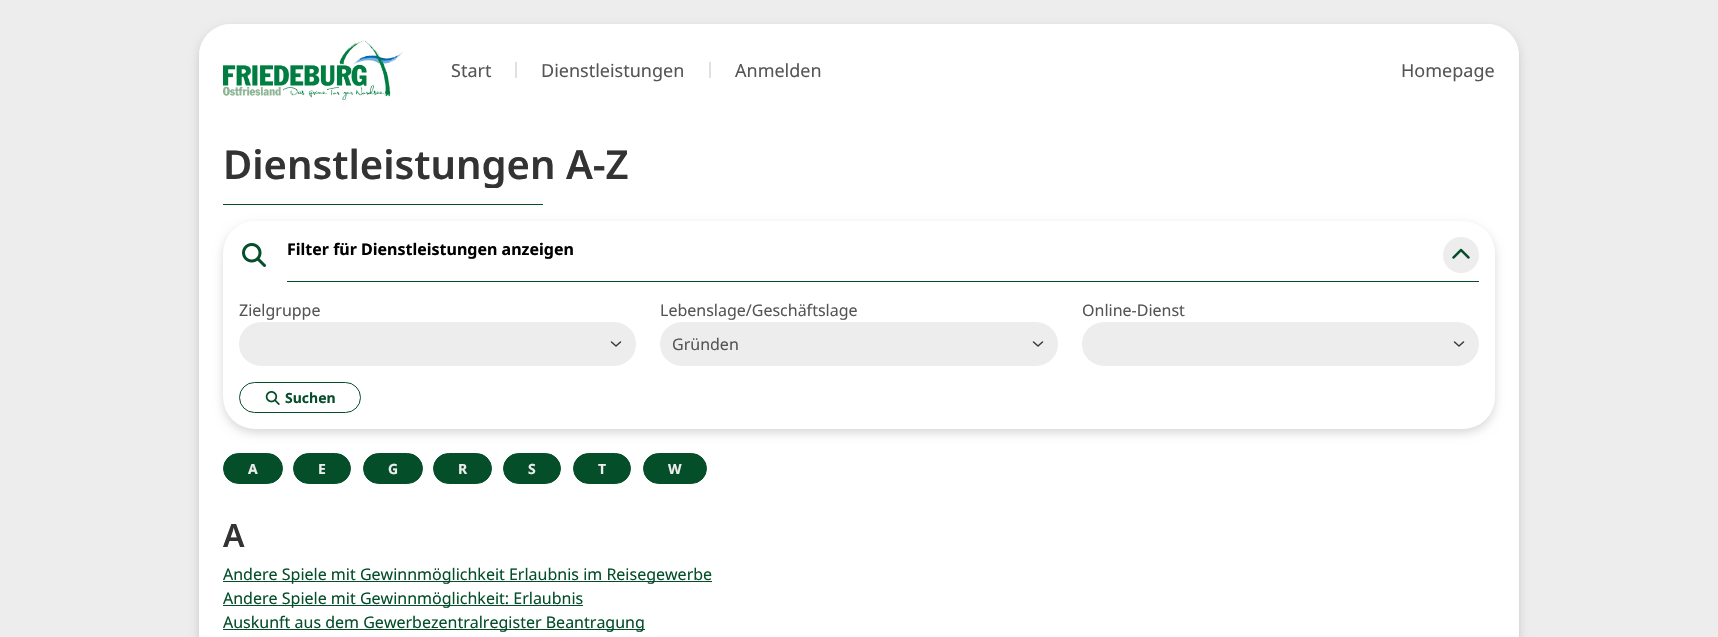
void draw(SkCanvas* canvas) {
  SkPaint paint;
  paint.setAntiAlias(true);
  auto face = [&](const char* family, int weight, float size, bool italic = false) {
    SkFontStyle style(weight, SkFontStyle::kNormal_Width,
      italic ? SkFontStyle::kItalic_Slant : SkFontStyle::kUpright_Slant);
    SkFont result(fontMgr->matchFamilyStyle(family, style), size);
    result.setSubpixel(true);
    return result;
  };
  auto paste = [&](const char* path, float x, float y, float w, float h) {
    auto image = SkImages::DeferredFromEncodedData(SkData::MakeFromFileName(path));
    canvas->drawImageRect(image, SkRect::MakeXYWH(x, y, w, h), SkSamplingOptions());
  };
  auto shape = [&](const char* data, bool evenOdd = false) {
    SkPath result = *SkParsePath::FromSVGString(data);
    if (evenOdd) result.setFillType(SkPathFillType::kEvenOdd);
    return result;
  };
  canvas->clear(0xffededed);
  paint.setColor(0x26000000);
  paint.setMaskFilter(SkMaskFilter::MakeBlur(kNormal_SkBlurStyle, 5));
  canvas->drawRoundRect(SkRect::MakeXYWH(199, 28, 1320, 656), 32, 32, paint);
  paint.setMaskFilter(nullptr);
  paint.setColor(0xffffffff);
  canvas->drawRoundRect(SkRect::MakeXYWH(199, 24, 1320, 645), 32, 32, paint);
  canvas->drawPath(shape("M231 24H1487C1504.5 24 1519 38.5 1519 56V116H199V56C199 38.5 213.5 24 231 24Z"), paint);
  paste("img/1.png", 223, 40, 180, 60);
  {
    const struct { float x, y, w, h; SkColor color; } items[] = {
      {515, 62, 2, 16, 0xffdee2e6},
      {709, 62, 2, 16, 0xffdee2e6},
      {223, 204, 320, 1, 0xff044e2a},
    };
    for (auto [x, y, w, h, color] : items) {
      paint.setColor(color);
      canvas->drawRect(SkRect::MakeXYWH(x, y, w, h), paint);
    }
  }
  paint.setColor(0x26000000);
  paint.setMaskFilter(SkMaskFilter::MakeBlur(kNormal_SkBlurStyle, 5));
  canvas->drawRoundRect(SkRect::MakeXYWH(223, 225, 1272, 208), 32, 32, paint);
  paint.setMaskFilter(nullptr);
  paint.setColor(0xffffffff);
  canvas->drawRoundRect(SkRect::MakeXYWH(223, 221, 1272, 208), 32, 32, paint);
  paste("img/2.png", 242, 243, 24, 24);
  paint.setColor(0xffededed);
  canvas->drawCircle(1461, 255, 18, paint);
  paste("img/3.png", 1452, 248, 18, 11);
  paint.setColor(0xff044e2a);
  canvas->drawRect(SkRect::MakeXYWH(287, 281, 1192, 1), paint);
  paint.setColor(0xffededed);
  canvas->drawRoundRect(SkRect::MakeXYWH(239, 322, 397, 44), 22, 22, paint);
  paint.setStroke(true);
  paint.setStrokeWidth(1.5f);
  paint.setStrokeCap(SkPaint::kRound_Cap);
  paint.setStrokeJoin(SkPaint::kRound_Join);
  paint.setColor(0xff343a40);
  canvas->drawPath(shape("M611.5 342L616 346L620.5 342"), paint);
  paint.setStroke(false);
  paint.setColor(0xffededed);
  canvas->drawRoundRect(SkRect::MakeXYWH(660, 322, 398, 44), 22, 22, paint);
  paint.setStroke(true);
  paint.setColor(0xff343a40);
  canvas->drawPath(shape("M1033.5 342L1038 346L1042.5 342"), paint);
  paint.setStroke(false);
  paint.setColor(0xffededed);
  canvas->drawRoundRect(SkRect::MakeXYWH(1082, 322, 397, 44), 22, 22, paint);
  paint.setStroke(true);
  paint.setColor(0xff343a40);
  canvas->drawPath(shape("M1454.5 342L1459 346L1463.5 342"), paint);
  paint.setStrokeWidth(1);
  paint.setStrokeCap(SkPaint::kButt_Cap);
  paint.setStrokeJoin(SkPaint::kMiter_Join);
  paint.setColor(0xff044e2a);
  canvas->drawRoundRect(SkRect::MakeXYWH(239.5f, 382.5f, 121, 30), 15, 15, paint);
  paste("img/4.png", 265, 391, 15, 14);
  paint.setStroke(false);
  canvas->drawRoundRect(SkRect::MakeXYWH(223.5f, 453.5f, 59, 30), 15, 15, paint);
  paint.setStroke(true);
  canvas->drawRoundRect(SkRect::MakeXYWH(223.5f, 453.5f, 59, 30), 15, 15, paint);
  paint.setStroke(false);
  canvas->drawRoundRect(SkRect::MakeXYWH(293.5f, 453.5f, 57, 30), 15, 15, paint);
  paint.setStroke(true);
  canvas->drawRoundRect(SkRect::MakeXYWH(293.5f, 453.5f, 57, 30), 15, 15, paint);
  paint.setStroke(false);
  canvas->drawRoundRect(SkRect::MakeXYWH(363.5f, 453.5f, 59, 30), 15, 15, paint);
  paint.setStroke(true);
  canvas->drawRoundRect(SkRect::MakeXYWH(363.5f, 453.5f, 59, 30), 15, 15, paint);
  paint.setStroke(false);
  canvas->drawRoundRect(SkRect::MakeXYWH(433.5f, 453.5f, 58, 30), 15, 15, paint);
  paint.setStroke(true);
  canvas->drawRoundRect(SkRect::MakeXYWH(433.5f, 453.5f, 58, 30), 15, 15, paint);
  paint.setStroke(false);
  canvas->drawRoundRect(SkRect::MakeXYWH(503.5f, 453.5f, 57, 30), 15, 15, paint);
  paint.setStroke(true);
  canvas->drawRoundRect(SkRect::MakeXYWH(503.5f, 453.5f, 57, 30), 15, 15, paint);
  paint.setStroke(false);
  canvas->drawRoundRect(SkRect::MakeXYWH(573.5f, 453.5f, 57, 30), 15, 15, paint);
  paint.setStroke(true);
  canvas->drawRoundRect(SkRect::MakeXYWH(573.5f, 453.5f, 57, 30), 15, 15, paint);
  paint.setStroke(false);
  canvas->drawRoundRect(SkRect::MakeXYWH(643.5f, 453.5f, 63, 30), 15, 15, paint);
  paint.setStroke(true);
  canvas->drawRoundRect(SkRect::MakeXYWH(643.5f, 453.5f, 63, 30), 15, 15, paint);
  paint.setStroke(false);
  {
    const struct { float x, y, w, h; SkColor color; } items[] = {
      {223, 581, 489, 1, 0xff044e2a},
      {223, 605, 360, 1, 0xff044e2a},
      {223, 629, 422, 1, 0xff044e2a},
    };
    for (auto [x, y, w, h, color] : items) {
      paint.setColor(color);
      canvas->drawRect(SkRect::MakeXYWH(x, y, w, h), paint);
    }
  }
  auto f0 = face("Noto Sans", 400, 18);
  paint.setColor(0xff555555);
  {
    const struct { const char* s; float x, y; } items[] = {
      {"Start", 451, 77},
      {"Dienstleistungen", 541, 77},
      {"Anmelden", 735, 77},
      {"Homepage", 1401, 77},
    };
    for (auto [s, x, y] : items) {
      canvas->drawString(s, x, y, f0, paint);
    }
  }
  canvas->save();
  canvas->clipRect(SkRect::MakeXYWH(223, 140, 1272, 48));
  auto f1 = face("Noto Sans", 600, 40);
  paint.setColor(0xff333333);
  canvas->drawString("Dienstleistungen A-Z", 223, 179, f1, paint);
  canvas->restore();
  auto f2 = face("Noto Sans", 700, 16);
  paint.setColor(0xff000000);
  canvas->drawString("Filter für Dienstleistungen anzeigen", 287, 255, f2, paint);
  auto f3 = face("Noto Sans", 400, 16);
  paint.setColor(0xff555555);
  {
    const struct { const char* s; float x, y; } items[] = {
      {"Zielgruppe", 239, 316},
      {"Lebenslage/Geschäftslage", 660, 316},
      {"Gründen", 672, 350},
      {"Online-Dienst", 1082, 316},
    };
    for (auto [s, x, y] : items) {
      canvas->drawString(s, x, y, f3, paint);
    }
  }
  auto f4 = face("Noto Sans", 700, 14);
  paint.setColor(0xff044e2a);
  canvas->drawString("Suchen", 285, 403, f4, paint);
  paint.setColor(0xffededed);
  {
    const struct { const char* s; float x, y; } items[] = {
      {"A", 248, 474},
      {"E", 318, 474},
      {"G", 388, 474},
      {"R", 458, 474},
      {"S", 528, 474},
      {"T", 598, 474},
      {"W", 668, 474},
    };
    for (auto [s, x, y] : items) {
      canvas->drawString(s, x, y, f4, paint);
    }
  }
  auto f5 = face("Noto Sans", 600, 32);
  paint.setColor(0xff333333);
  canvas->drawString("A", 223, 547, f5, paint);
  paint.setColor(0xff044e2a);
  {
    const struct { const char* s; float x, y; } items[] = {
      {"Andere Spiele mit Gewinnmöglichkeit Erlaubnis im Reisegewerbe", 223, 580},
      {"Andere Spiele mit Gewinnmöglichkeit: Erlaubnis", 223, 604},
      {"Auskunft aus dem Gewerbezentralregister Beantragung", 223, 628},
    };
    for (auto [s, x, y] : items) {
      canvas->drawString(s, x, y, f3, paint);
    }
  }
}
